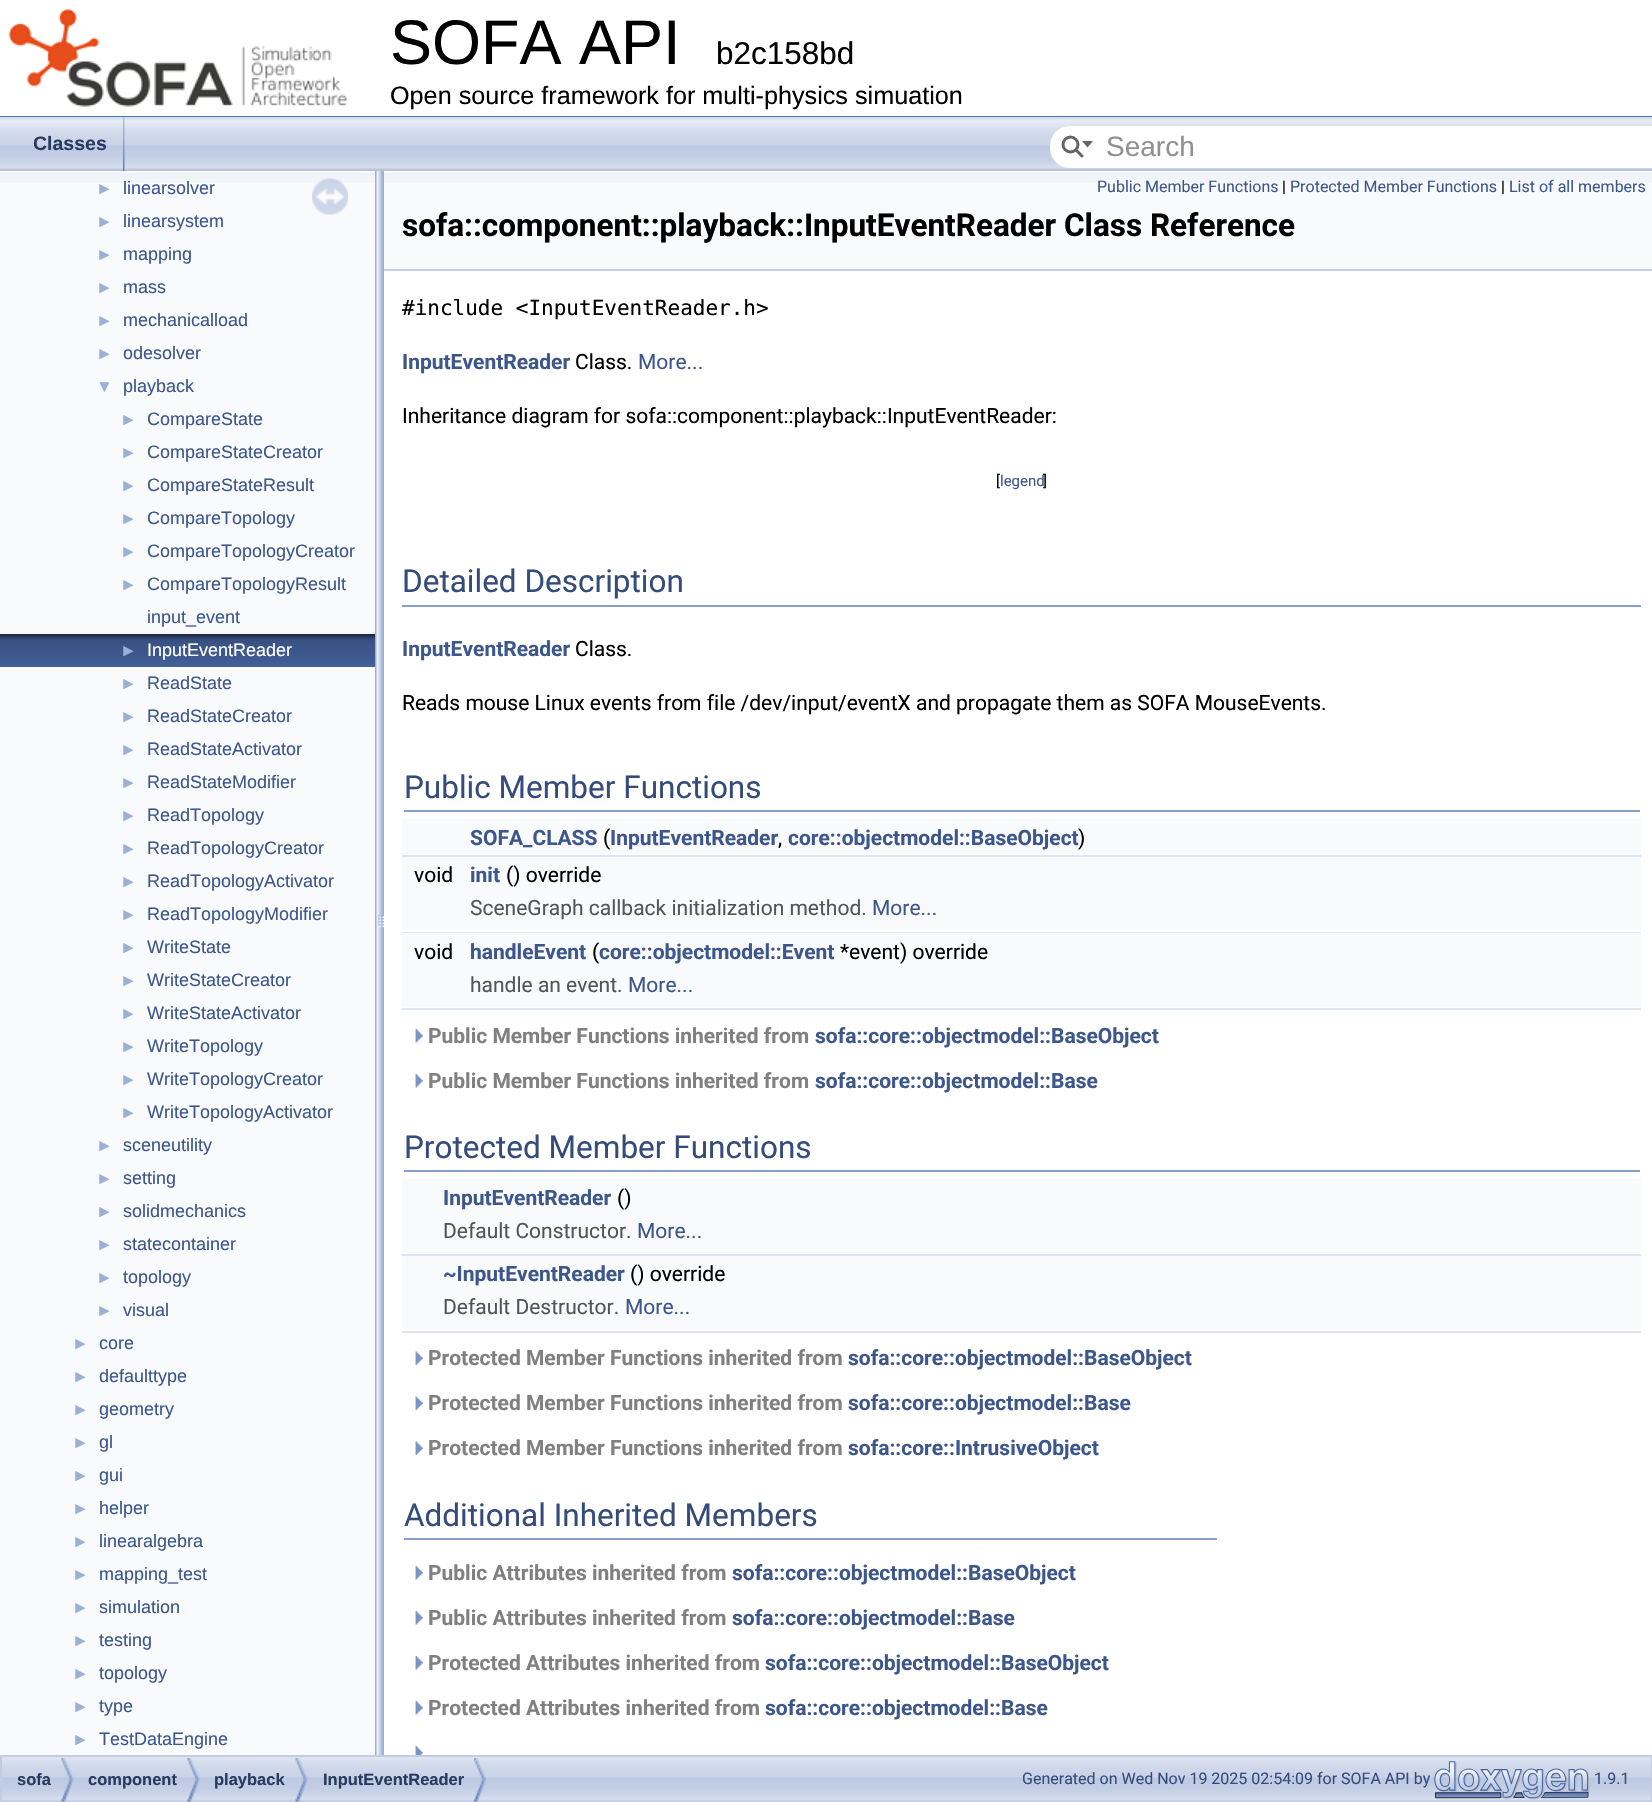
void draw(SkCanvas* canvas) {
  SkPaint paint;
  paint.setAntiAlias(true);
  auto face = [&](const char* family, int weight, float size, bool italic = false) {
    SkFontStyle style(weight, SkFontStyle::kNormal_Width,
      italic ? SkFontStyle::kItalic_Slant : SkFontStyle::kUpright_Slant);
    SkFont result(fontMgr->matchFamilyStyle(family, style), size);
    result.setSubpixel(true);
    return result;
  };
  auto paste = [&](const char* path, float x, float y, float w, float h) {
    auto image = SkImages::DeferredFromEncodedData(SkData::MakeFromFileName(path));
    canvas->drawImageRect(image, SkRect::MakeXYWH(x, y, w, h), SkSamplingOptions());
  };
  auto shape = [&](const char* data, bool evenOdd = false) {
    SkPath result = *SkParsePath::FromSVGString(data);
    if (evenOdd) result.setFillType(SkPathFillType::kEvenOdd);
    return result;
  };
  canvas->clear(0xffffffff);
  paint.setColor(0xff5373b4);
  canvas->drawRect(SkRect::MakeXYWH(0, 116, 1652, 1), paint);
  paste("img/1.png", 8, 8, 339, 99);
  paste("img/2.png", 0, 117, 1652, 54);
  paste("img/3.png", 123, 117, 2, 54);
  paint.setColor(0xffffffff);
  canvas->drawRoundRect(SkRect::MakeXYWH(1050, 126, 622, 42), 20, 20, paint);
  paint.setStroke(true);
  paint.setStrokeWidth(3);
  paint.setColor(0xff656565);
  canvas->drawCircle(1070.5f, 144.5f, 7.5f, paint);
  paint.setStroke(false);
  canvas->drawPath(shape("M1082 141L1087.5 147.5L1093 141Z"), paint);
  paint.setStroke(true);
  paint.setStrokeCap(SkPaint::kRound_Cap);
  canvas->drawPath(shape("M1076 150L1082 156"), paint);
  paint.setStroke(false);
  paint.setColor(0xfff9fafc);
  canvas->drawRect(SkRect::MakeXYWH(0, 183, 375, 1572), paint);
  paste("img/4.png", 0, 171, 375, 12);
  paste("img/5.png", 312, 178, 36, 37);
  paste("img/6.png", 0, 634, 375, 33);
  paste("img/7.png", 375, 171, 9, 1584);
  canvas->drawRect(SkRect::MakeXYWH(384, 183, 1268, 86), paint);
  paste("img/8.png", 384, 171, 1268, 12);
  {
    const struct { float x, y, w, h; SkColor color; } items[] = {
      {384, 269, 1268, 2, 0xffc4cfe5},
      {402, 605, 1239, 2, 0xff879ecb},
      {404, 810, 1236, 2, 0xff879ecb},
      {402, 819, 1239, 35, 0xfff9fafc},
      {402, 855, 1239, 2, 0xffdee4f0},
      {402, 857, 1239, 34, 0xfff9fafc},
      {402, 891, 1239, 39, 0xfff9fafc},
      {402, 932, 1239, 1, 0xffdee4f0},
      {402, 933, 1239, 35, 0xfff9fafc},
      {402, 968, 1239, 39, 0xfff9fafc},
      {402, 1008, 1239, 2, 0xffdee4f0},
    };
    for (auto [x, y, w, h, color] : items) {
      paint.setColor(color);
      canvas->drawRect(SkRect::MakeXYWH(x, y, w, h), paint);
    }
  }
  paste("img/9.png", 415, 1029, 8, 14);
  paste("img/9.png", 415, 1074, 8, 14);
  {
    const struct { float x, y, w, h; SkColor color; } items[] = {
      {404, 1170, 1236, 2, 0xff879ecb},
      {402, 1179, 1239, 35, 0xfff9fafc},
      {402, 1214, 1239, 39, 0xfff9fafc},
      {402, 1254, 1239, 2, 0xffdee4f0},
      {402, 1256, 1239, 34, 0xfff9fafc},
      {402, 1290, 1239, 39, 0xfff9fafc},
      {402, 1331, 1239, 2, 0xffdee4f0},
    };
    for (auto [x, y, w, h, color] : items) {
      paint.setColor(color);
      canvas->drawRect(SkRect::MakeXYWH(x, y, w, h), paint);
    }
  }
  paste("img/10.png", 415, 1351, 8, 14);
  paste("img/10.png", 415, 1396, 8, 14);
  paste("img/10.png", 415, 1441, 8, 14);
  paint.setColor(0xff879ecb);
  canvas->drawRect(SkRect::MakeXYWH(404, 1538, 813, 2), paint);
  paste("img/9.png", 415, 1566, 8, 14);
  paste("img/9.png", 415, 1611, 8, 14);
  paste("img/9.png", 415, 1656, 8, 14);
  paste("img/9.png", 415, 1701, 8, 14);
  paste("img/11.png", 415, 1746, 8, 9);
  paste("img/12.png", 2, 1757, 1649, 44);
  paint.setStroke(true);
  paint.setStrokeWidth(2);
  paint.setStrokeCap(SkPaint::kButt_Cap);
  paint.setColor(0xffc2cde4);
  canvas->drawRect(SkRect::MakeXYWH(1, 1756, 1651, 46), paint);
  paste("img/13.png", 61, 1758, 13, 44);
  paste("img/13.png", 187, 1758, 13, 44);
  paste("img/14.png", 295, 1758, 13, 44);
  paste("img/15.png", 474, 1758, 12, 44);
  paste("img/16.png", 1434, 1761, 156, 39);
  auto f0 = face("Liberation Sans", 400, 63);
  paint.setStroke(false);
  paint.setColor(0xff000000);
  canvas->drawString("SOFA API", 390, 64, f0, paint);
  auto f1 = face("Liberation Sans", 400, 31.5f);
  canvas->drawString("b2c158bd", 716, 64, f1, paint);
  auto f2 = face("Liberation Sans", 400, 25.2f);
  canvas->drawString("Open source framework for multi-physics simuation", 390, 104, f2, paint);
  auto f3 = face("Liberation Sans", 700, 19.5f);
  paint.setColor(0xff283a5d);
  canvas->drawString("Classes", 33, 150, f3, paint);
  auto f4 = face("Liberation Sans", 400, 28);
  paint.setColor(0xff909090);
  canvas->drawString("Search", 1106, 156, f4, paint);
  auto f5 = face("Liberation Sans", 400, 17);
  paint.setColor(0xff9cafd4);
  canvas->drawString("►", 96, 194, f5, paint);
  auto f6 = face("Liberation Sans", 400, 18);
  paint.setColor(0xff3d578c);
  canvas->drawString("linearsolver", 123, 194, f6, paint);
  paint.setColor(0xff9cafd4);
  canvas->drawString("►", 96, 227, f5, paint);
  paint.setColor(0xff3d578c);
  canvas->drawString("linearsystem", 123, 227, f6, paint);
  paint.setColor(0xff9cafd4);
  canvas->drawString("►", 96, 260, f5, paint);
  paint.setColor(0xff3d578c);
  canvas->drawString("mapping", 123, 260, f6, paint);
  paint.setColor(0xff9cafd4);
  canvas->drawString("►", 96, 293, f5, paint);
  paint.setColor(0xff3d578c);
  canvas->drawString("mass", 123, 293, f6, paint);
  paint.setColor(0xff9cafd4);
  canvas->drawString("►", 96, 326, f5, paint);
  paint.setColor(0xff3d578c);
  canvas->drawString("mechanicalload", 123, 326, f6, paint);
  paint.setColor(0xff9cafd4);
  canvas->drawString("►", 96, 359, f5, paint);
  paint.setColor(0xff3d578c);
  canvas->drawString("odesolver", 123, 359, f6, paint);
  paint.setColor(0xff9cafd4);
  canvas->drawString("▼", 96, 392, f5, paint);
  paint.setColor(0xff3d578c);
  canvas->drawString("playback", 123, 392, f6, paint);
  paint.setColor(0xff9cafd4);
  canvas->drawString("►", 120, 425, f5, paint);
  paint.setColor(0xff3d578c);
  canvas->drawString("CompareState", 147, 425, f6, paint);
  paint.setColor(0xff9cafd4);
  canvas->drawString("►", 120, 458, f5, paint);
  paint.setColor(0xff3d578c);
  canvas->drawString("CompareStateCreator", 147, 458, f6, paint);
  paint.setColor(0xff9cafd4);
  canvas->drawString("►", 120, 491, f5, paint);
  paint.setColor(0xff3d578c);
  canvas->drawString("CompareStateResult", 147, 491, f6, paint);
  paint.setColor(0xff9cafd4);
  canvas->drawString("►", 120, 524, f5, paint);
  paint.setColor(0xff3d578c);
  canvas->drawString("CompareTopology", 147, 524, f6, paint);
  paint.setColor(0xff9cafd4);
  canvas->drawString("►", 120, 557, f5, paint);
  paint.setColor(0xff3d578c);
  canvas->drawString("CompareTopologyCreator", 147, 557, f6, paint);
  paint.setColor(0xff9cafd4);
  canvas->drawString("►", 120, 590, f5, paint);
  paint.setColor(0xff3d578c);
  canvas->drawString("CompareTopologyResult", 147, 590, f6, paint);
  canvas->drawString("input_event", 147, 623, f6, paint);
  paint.setColor(0xff9cafd4);
  canvas->drawString("►", 120, 656, f5, paint);
  paint.setColor(0xffffffff);
  canvas->drawString("InputEventReader", 147, 656, f6, paint);
  paint.setColor(0xff9cafd4);
  canvas->drawString("►", 120, 689, f5, paint);
  paint.setColor(0xff3d578c);
  canvas->drawString("ReadState", 147, 689, f6, paint);
  paint.setColor(0xff9cafd4);
  canvas->drawString("►", 120, 722, f5, paint);
  paint.setColor(0xff3d578c);
  canvas->drawString("ReadStateCreator", 147, 722, f6, paint);
  paint.setColor(0xff9cafd4);
  canvas->drawString("►", 120, 755, f5, paint);
  paint.setColor(0xff3d578c);
  canvas->drawString("ReadStateActivator", 147, 755, f6, paint);
  paint.setColor(0xff9cafd4);
  canvas->drawString("►", 120, 788, f5, paint);
  paint.setColor(0xff3d578c);
  canvas->drawString("ReadStateModifier", 147, 788, f6, paint);
  paint.setColor(0xff9cafd4);
  canvas->drawString("►", 120, 821, f5, paint);
  paint.setColor(0xff3d578c);
  canvas->drawString("ReadTopology", 147, 821, f6, paint);
  paint.setColor(0xff9cafd4);
  canvas->drawString("►", 120, 854, f5, paint);
  paint.setColor(0xff3d578c);
  canvas->drawString("ReadTopologyCreator", 147, 854, f6, paint);
  paint.setColor(0xff9cafd4);
  canvas->drawString("►", 120, 887, f5, paint);
  paint.setColor(0xff3d578c);
  canvas->drawString("ReadTopologyActivator", 147, 887, f6, paint);
  paint.setColor(0xff9cafd4);
  canvas->drawString("►", 120, 920, f5, paint);
  paint.setColor(0xff3d578c);
  canvas->drawString("ReadTopologyModifier", 147, 920, f6, paint);
  paint.setColor(0xff9cafd4);
  canvas->drawString("►", 120, 953, f5, paint);
  paint.setColor(0xff3d578c);
  canvas->drawString("WriteState", 147, 953, f6, paint);
  paint.setColor(0xff9cafd4);
  canvas->drawString("►", 120, 986, f5, paint);
  paint.setColor(0xff3d578c);
  canvas->drawString("WriteStateCreator", 147, 986, f6, paint);
  paint.setColor(0xff9cafd4);
  canvas->drawString("►", 120, 1019, f5, paint);
  paint.setColor(0xff3d578c);
  canvas->drawString("WriteStateActivator", 147, 1019, f6, paint);
  paint.setColor(0xff9cafd4);
  canvas->drawString("►", 120, 1052, f5, paint);
  paint.setColor(0xff3d578c);
  canvas->drawString("WriteTopology", 147, 1052, f6, paint);
  paint.setColor(0xff9cafd4);
  canvas->drawString("►", 120, 1085, f5, paint);
  paint.setColor(0xff3d578c);
  canvas->drawString("WriteTopologyCreator", 147, 1085, f6, paint);
  paint.setColor(0xff9cafd4);
  canvas->drawString("►", 120, 1118, f5, paint);
  paint.setColor(0xff3d578c);
  canvas->drawString("WriteTopologyActivator", 147, 1118, f6, paint);
  paint.setColor(0xff9cafd4);
  canvas->drawString("►", 96, 1151, f5, paint);
  paint.setColor(0xff3d578c);
  canvas->drawString("sceneutility", 123, 1151, f6, paint);
  paint.setColor(0xff9cafd4);
  canvas->drawString("►", 96, 1184, f5, paint);
  paint.setColor(0xff3d578c);
  canvas->drawString("setting", 123, 1184, f6, paint);
  paint.setColor(0xff9cafd4);
  canvas->drawString("►", 96, 1217, f5, paint);
  paint.setColor(0xff3d578c);
  canvas->drawString("solidmechanics", 123, 1217, f6, paint);
  paint.setColor(0xff9cafd4);
  canvas->drawString("►", 96, 1250, f5, paint);
  paint.setColor(0xff3d578c);
  canvas->drawString("statecontainer", 123, 1250, f6, paint);
  paint.setColor(0xff9cafd4);
  canvas->drawString("►", 96, 1283, f5, paint);
  paint.setColor(0xff3d578c);
  canvas->drawString("topology", 123, 1283, f6, paint);
  paint.setColor(0xff9cafd4);
  canvas->drawString("►", 96, 1316, f5, paint);
  paint.setColor(0xff3d578c);
  canvas->drawString("visual", 123, 1316, f6, paint);
  paint.setColor(0xff9cafd4);
  canvas->drawString("►", 72, 1349, f5, paint);
  paint.setColor(0xff3d578c);
  canvas->drawString("core", 99, 1349, f6, paint);
  paint.setColor(0xff9cafd4);
  canvas->drawString("►", 72, 1382, f5, paint);
  paint.setColor(0xff3d578c);
  canvas->drawString("defaulttype", 99, 1382, f6, paint);
  paint.setColor(0xff9cafd4);
  canvas->drawString("►", 72, 1415, f5, paint);
  paint.setColor(0xff3d578c);
  canvas->drawString("geometry", 99, 1415, f6, paint);
  paint.setColor(0xff9cafd4);
  canvas->drawString("►", 72, 1448, f5, paint);
  paint.setColor(0xff3d578c);
  canvas->drawString("gl", 99, 1448, f6, paint);
  paint.setColor(0xff9cafd4);
  canvas->drawString("►", 72, 1481, f5, paint);
  paint.setColor(0xff3d578c);
  canvas->drawString("gui", 99, 1481, f6, paint);
  paint.setColor(0xff9cafd4);
  canvas->drawString("►", 72, 1514, f5, paint);
  paint.setColor(0xff3d578c);
  canvas->drawString("helper", 99, 1514, f6, paint);
  paint.setColor(0xff9cafd4);
  canvas->drawString("►", 72, 1547, f5, paint);
  paint.setColor(0xff3d578c);
  canvas->drawString("linearalgebra", 99, 1547, f6, paint);
  paint.setColor(0xff9cafd4);
  canvas->drawString("►", 72, 1580, f5, paint);
  paint.setColor(0xff3d578c);
  canvas->drawString("mapping_test", 99, 1580, f6, paint);
  paint.setColor(0xff9cafd4);
  canvas->drawString("►", 72, 1613, f5, paint);
  paint.setColor(0xff3d578c);
  canvas->drawString("simulation", 99, 1613, f6, paint);
  paint.setColor(0xff9cafd4);
  canvas->drawString("►", 72, 1646, f5, paint);
  paint.setColor(0xff3d578c);
  canvas->drawString("testing", 99, 1646, f6, paint);
  paint.setColor(0xff9cafd4);
  canvas->drawString("►", 72, 1679, f5, paint);
  paint.setColor(0xff3d578c);
  canvas->drawString("topology", 99, 1679, f6, paint);
  paint.setColor(0xff9cafd4);
  canvas->drawString("►", 72, 1712, f5, paint);
  paint.setColor(0xff3d578c);
  canvas->drawString("type", 99, 1712, f6, paint);
  paint.setColor(0xff9cafd4);
  canvas->drawString("►", 72, 1745, f5, paint);
  paint.setColor(0xff3d578c);
  canvas->drawString("TestDataEngine", 99, 1745, f6, paint);
  auto f7 = face("Roboto", 400, 16);
  canvas->drawString("Public Member Functions", 1097, 192, f7, paint);
  paint.setColor(0xff000000);
  canvas->drawString("|", 1282, 192, f7, paint);
  paint.setColor(0xff3d578c);
  canvas->drawString("Protected Member Functions", 1290, 192, f7, paint);
  paint.setColor(0xff000000);
  canvas->drawString("|", 1501, 192, f7, paint);
  paint.setColor(0xff3d578c);
  canvas->drawString("List of all members", 1509, 192, f7, paint);
  auto f8 = face("Roboto", 700, 31.5f);
  paint.setColor(0xff000000);
  canvas->drawString("sofa::component::playback::InputEventReader Class Reference", 402, 236, f8, paint);
  auto f9 = face("DejaVu Sans Mono", 400, 21);
  canvas->drawString("#include <InputEventReader.h>", 402, 315, f9, paint);
  auto f10 = face("Roboto", 700, 21);
  paint.setColor(0xff3d578c);
  canvas->drawString("InputEventReader", 402, 369, f10, paint);
  auto f11 = face("Roboto", 400, 21);
  paint.setColor(0xff000000);
  canvas->drawString("Class.", 575, 369, f11, paint);
  paint.setColor(0xff3d578c);
  canvas->drawString("More...", 638, 369, f11, paint);
  paint.setColor(0xff000000);
  canvas->drawString("Inheritance diagram for sofa::component::playback::InputEventReader:", 402, 423, f11, paint);
  auto f12 = face("Roboto", 400, 15);
  canvas->drawString("[", 996, 486, f12, paint);
  paint.setColor(0xff3d578c);
  canvas->drawString("legend", 1000, 486, f12, paint);
  paint.setColor(0xff000000);
  canvas->drawString("]", 1043, 486, f12, paint);
  auto f13 = face("Roboto", 400, 31.5f);
  paint.setColor(0xff354c7b);
  canvas->drawString("Detailed Description", 402, 592, f13, paint);
  paint.setColor(0xff3d578c);
  canvas->drawString("InputEventReader", 402, 656, f10, paint);
  paint.setColor(0xff000000);
  canvas->drawString("Class.", 575, 656, f11, paint);
  canvas->drawString("Reads mouse Linux events from file /dev/input/eventX and propagate them as SOFA MouseEvents.", 402, 710, f11, paint);
  paint.setColor(0xff354c7b);
  canvas->drawString("Public Member Functions", 404, 798, f13, paint);
  paint.setColor(0xff3d578c);
  canvas->drawString("SOFA_CLASS", 470, 845, f10, paint);
  paint.setColor(0xff000000);
  canvas->drawString("(", 603, 845, f11, paint);
  paint.setColor(0xff3d578c);
  canvas->drawString("InputEventReader", 610, 845, f10, paint);
  paint.setColor(0xff000000);
  canvas->drawString(",", 778, 845, f11, paint);
  paint.setColor(0xff3d578c);
  canvas->drawString("core::objectmodel::BaseObject", 788, 845, f10, paint);
  paint.setColor(0xff000000);
  canvas->drawString(")", 1078, 845, f11, paint);
  canvas->drawString("void", 414, 882, f11, paint);
  paint.setColor(0xff3d578c);
  canvas->drawString("init", 470, 882, f10, paint);
  paint.setColor(0xff000000);
  canvas->drawString("() override", 506, 882, f11, paint);
  paint.setColor(0xff555555);
  canvas->drawString("SceneGraph callback initialization method.", 470, 915, f11, paint);
  paint.setColor(0xff3d578c);
  canvas->drawString("More...", 872, 915, f11, paint);
  paint.setColor(0xff000000);
  canvas->drawString("void", 414, 959, f11, paint);
  paint.setColor(0xff3d578c);
  canvas->drawString("handleEvent", 470, 959, f10, paint);
  paint.setColor(0xff000000);
  canvas->drawString("(", 592, 959, f11, paint);
  paint.setColor(0xff3d578c);
  canvas->drawString("core::objectmodel::Event", 599, 959, f10, paint);
  paint.setColor(0xff000000);
  canvas->drawString("*event) override", 840, 959, f11, paint);
  paint.setColor(0xff555555);
  canvas->drawString("handle an event.", 470, 992, f11, paint);
  paint.setColor(0xff3d578c);
  canvas->drawString("More...", 628, 992, f11, paint);
  paint.setColor(0xff808080);
  canvas->drawString("Public Member Functions inherited from", 428, 1043, f10, paint);
  paint.setColor(0xff3d578c);
  canvas->drawString("sofa::core::objectmodel::BaseObject", 815, 1043, f10, paint);
  paint.setColor(0xff808080);
  canvas->drawString("Public Member Functions inherited from", 428, 1088, f10, paint);
  paint.setColor(0xff3d578c);
  canvas->drawString("sofa::core::objectmodel::Base", 815, 1088, f10, paint);
  paint.setColor(0xff354c7b);
  canvas->drawString("Protected Member Functions", 404, 1158, f13, paint);
  paint.setColor(0xff3d578c);
  canvas->drawString("InputEventReader", 443, 1205, f10, paint);
  paint.setColor(0xff000000);
  canvas->drawString("()", 617, 1205, f11, paint);
  paint.setColor(0xff555555);
  canvas->drawString("Default Constructor.", 443, 1238, f11, paint);
  paint.setColor(0xff3d578c);
  canvas->drawString("More...", 637, 1238, f11, paint);
  canvas->drawString("~InputEventReader", 443, 1281, f10, paint);
  paint.setColor(0xff000000);
  canvas->drawString("() override", 630, 1281, f11, paint);
  paint.setColor(0xff555555);
  canvas->drawString("Default Destructor.", 443, 1314, f11, paint);
  paint.setColor(0xff3d578c);
  canvas->drawString("More...", 625, 1314, f11, paint);
  paint.setColor(0xff808080);
  canvas->drawString("Protected Member Functions inherited from", 428, 1365, f10, paint);
  paint.setColor(0xff3d578c);
  canvas->drawString("sofa::core::objectmodel::BaseObject", 848, 1365, f10, paint);
  paint.setColor(0xff808080);
  canvas->drawString("Protected Member Functions inherited from", 428, 1410, f10, paint);
  paint.setColor(0xff3d578c);
  canvas->drawString("sofa::core::objectmodel::Base", 848, 1410, f10, paint);
  paint.setColor(0xff808080);
  canvas->drawString("Protected Member Functions inherited from", 428, 1455, f10, paint);
  paint.setColor(0xff3d578c);
  canvas->drawString("sofa::core::IntrusiveObject", 848, 1455, f10, paint);
  paint.setColor(0xff354c7b);
  canvas->drawString("Additional Inherited Members", 404, 1526, f13, paint);
  paint.setColor(0xff808080);
  canvas->drawString("Public Attributes inherited from", 428, 1580, f10, paint);
  paint.setColor(0xff3d578c);
  canvas->drawString("sofa::core::objectmodel::BaseObject", 732, 1580, f10, paint);
  paint.setColor(0xff808080);
  canvas->drawString("Public Attributes inherited from", 428, 1625, f10, paint);
  paint.setColor(0xff3d578c);
  canvas->drawString("sofa::core::objectmodel::Base", 732, 1625, f10, paint);
  paint.setColor(0xff808080);
  canvas->drawString("Protected Attributes inherited from", 428, 1670, f10, paint);
  paint.setColor(0xff3d578c);
  canvas->drawString("sofa::core::objectmodel::BaseObject", 765, 1670, f10, paint);
  paint.setColor(0xff808080);
  canvas->drawString("Protected Attributes inherited from", 428, 1715, f10, paint);
  paint.setColor(0xff3d578c);
  canvas->drawString("sofa::core::objectmodel::Base", 765, 1715, f10, paint);
  auto f14 = face("Liberation Sans", 700, 16.5f);
  paint.setColor(0xff283a5d);
  {
    const struct { const char* s; float x, y; } items[] = {
      {"sofa", 17, 1785},
      {"component", 88, 1785},
      {"playback", 214, 1785},
      {"InputEventReader", 323, 1785},
    };
    for (auto [s, x, y] : items) {
      canvas->drawString(s, x, y, f14, paint);
    }
  }
  paint.setColor(0xff354c7b);
  canvas->drawString("Generated on Wed Nov 19 2025 02:54:09 for SOFA API by", 1022, 1784, f7, paint);
  canvas->drawString("1.9.1", 1594, 1784, f7, paint);
}
